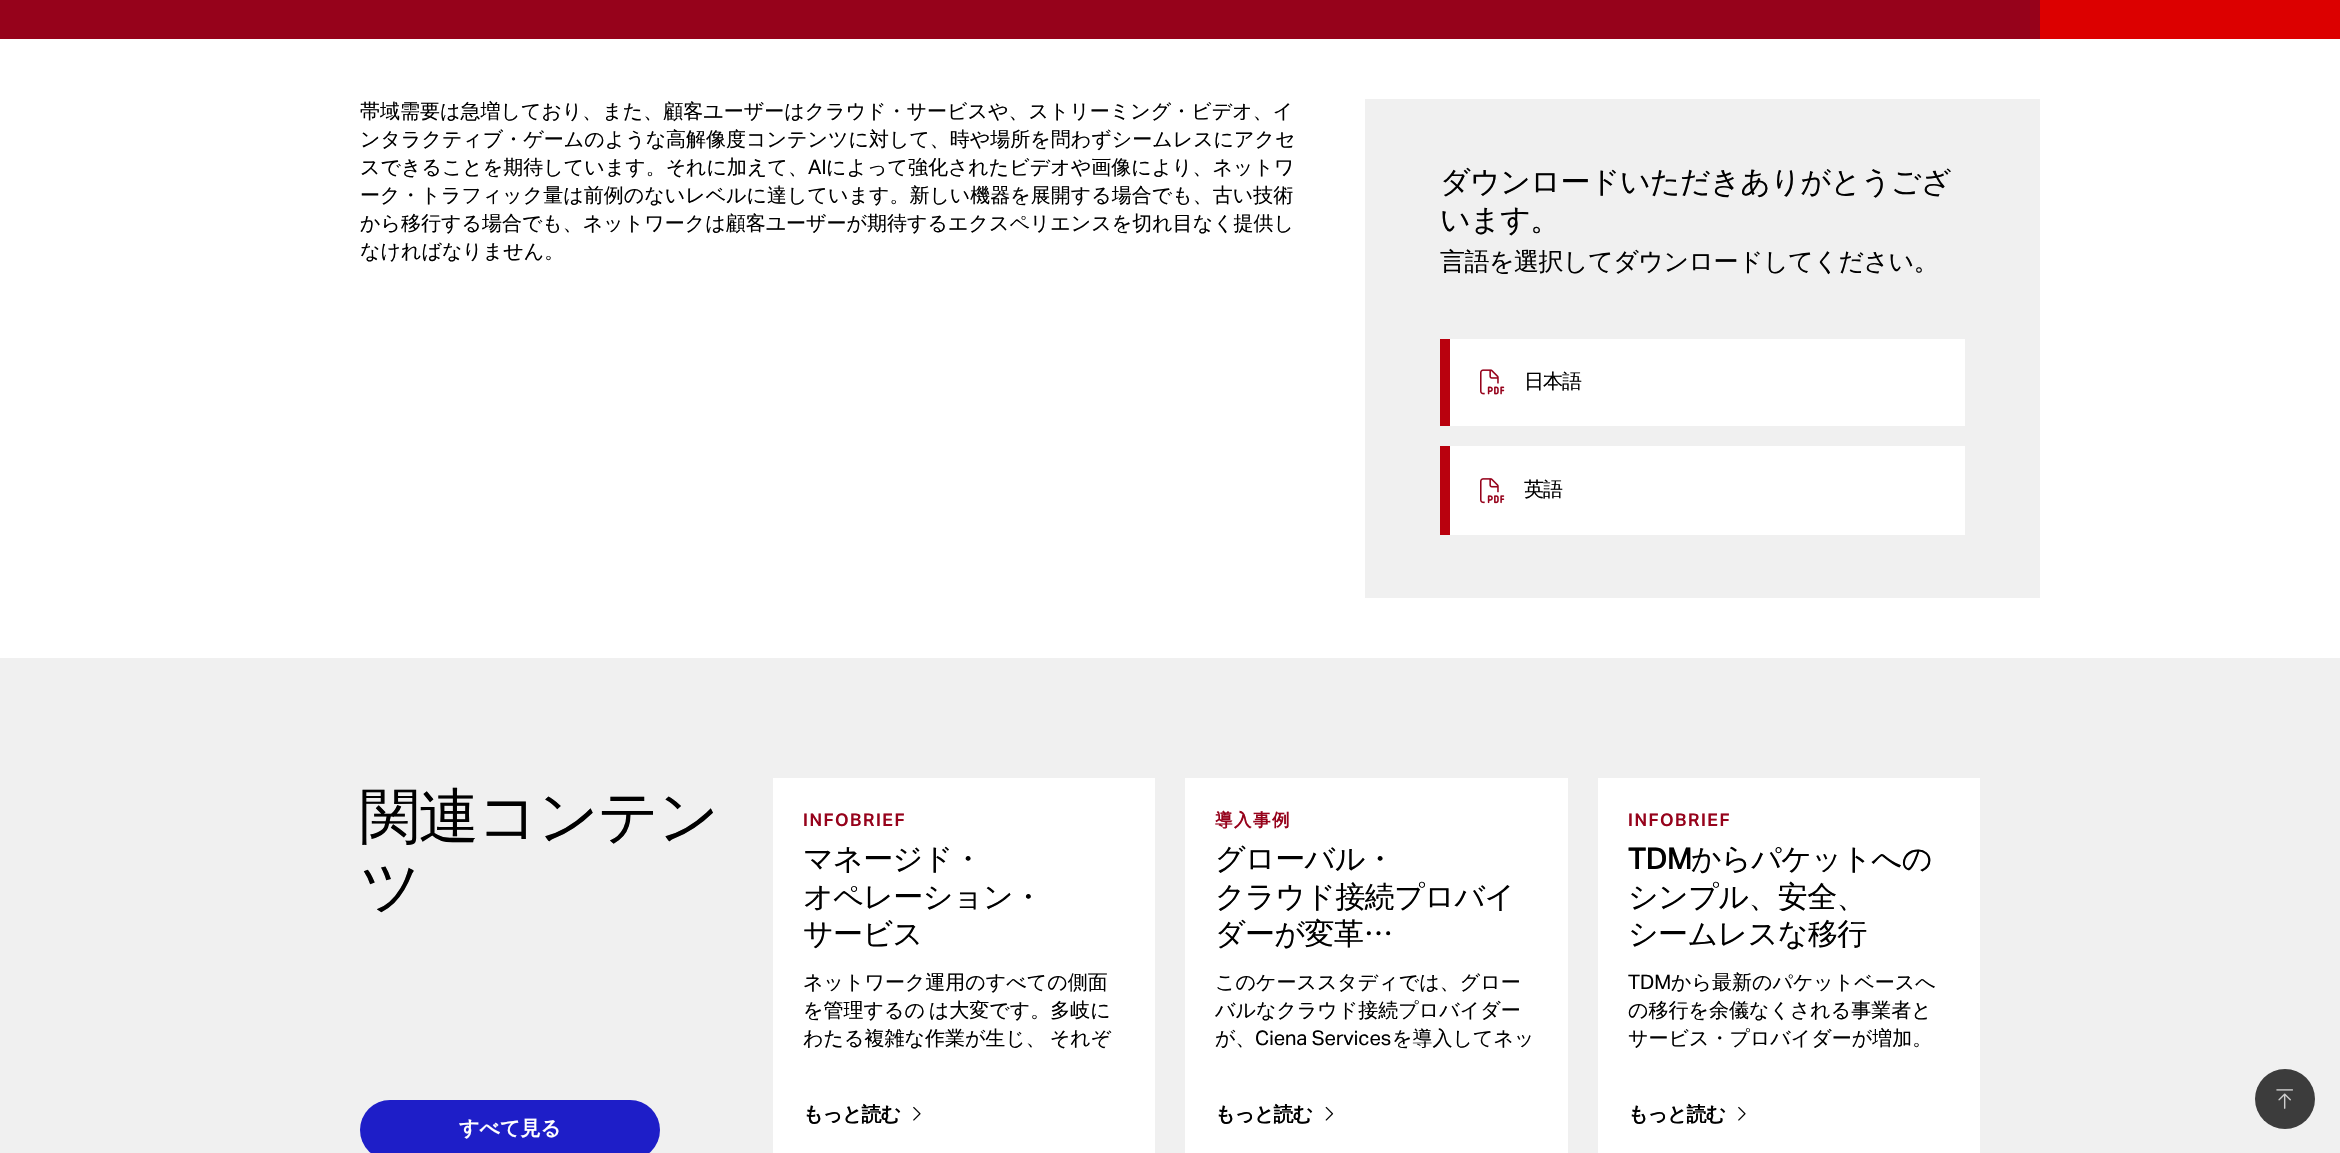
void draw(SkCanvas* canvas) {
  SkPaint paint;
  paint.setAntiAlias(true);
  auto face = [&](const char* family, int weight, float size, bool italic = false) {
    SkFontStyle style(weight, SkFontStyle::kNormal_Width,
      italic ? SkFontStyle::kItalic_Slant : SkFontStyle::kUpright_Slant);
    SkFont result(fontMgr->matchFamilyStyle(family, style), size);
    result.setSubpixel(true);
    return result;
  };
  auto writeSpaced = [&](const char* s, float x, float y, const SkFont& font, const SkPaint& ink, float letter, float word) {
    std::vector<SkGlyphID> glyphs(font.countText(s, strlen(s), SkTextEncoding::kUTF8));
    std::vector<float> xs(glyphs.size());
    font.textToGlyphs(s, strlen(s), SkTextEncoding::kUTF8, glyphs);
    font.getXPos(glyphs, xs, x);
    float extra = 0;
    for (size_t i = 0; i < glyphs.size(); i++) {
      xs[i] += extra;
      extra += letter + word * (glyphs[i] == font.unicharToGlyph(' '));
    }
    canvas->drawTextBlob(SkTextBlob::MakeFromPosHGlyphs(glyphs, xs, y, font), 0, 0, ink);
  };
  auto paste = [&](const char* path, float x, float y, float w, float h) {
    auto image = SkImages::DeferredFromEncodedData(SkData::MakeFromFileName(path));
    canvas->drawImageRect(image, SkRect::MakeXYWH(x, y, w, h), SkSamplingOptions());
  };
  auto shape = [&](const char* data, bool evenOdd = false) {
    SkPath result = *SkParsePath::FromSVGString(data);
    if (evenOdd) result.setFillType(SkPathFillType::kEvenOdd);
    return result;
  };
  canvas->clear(0xffffffff);
  canvas->save();
  canvas->clipRect(SkRect::MakeXYWH(0, 0, 2340, 39));
  paint.setColor(0xffdc0000);
  canvas->drawPath(shape("M1287-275H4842C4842 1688 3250 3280 1287 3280Z"), paint);
  paint.setColor(0xff96021b);
  canvas->drawPath(shape("M1287-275V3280C-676 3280-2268 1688-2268-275C-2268-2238-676-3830 1287-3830Z"), paint);
  canvas->restore();
  {
    const struct { float x, y, w, h; SkColor color; } items[] = {
      {1287, 0, 753, 39, 0xff96021b},
      {1365, 99, 675, 499, 0xfff0f0f0},
      {1450, 339, 515, 87, 0xffffffff},
      {1440, 339, 10, 87, 0xffb9010e},
    };
    for (auto [x, y, w, h, color] : items) {
      paint.setColor(color);
      canvas->drawRect(SkRect::MakeXYWH(x, y, w, h), paint);
    }
  }
  paste("img/1.png", 1480, 369, 25, 26);
  paint.setColor(0xffffffff);
  canvas->drawRect(SkRect::MakeXYWH(1450, 446, 515, 89), paint);
  paint.setColor(0xffb9010e);
  canvas->drawRect(SkRect::MakeXYWH(1440, 446, 10, 89), paint);
  paste("img/2.png", 1480, 478, 25, 26);
  paint.setColor(0xfff0f0f0);
  canvas->drawRect(SkRect::MakeXYWH(0, 658, 2340, 495), paint);
  paint.setColor(0xff1e1ec8);
  canvas->drawRoundRect(SkRect::MakeXYWH(360, 1100, 300, 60), 30, 30, paint);
  paint.setColor(0xffffffff);
  canvas->drawRect(SkRect::MakeXYWH(773, 778, 382, 375), paint);
  paste("img/3.png", 913, 1106, 8, 15);
  canvas->drawRect(SkRect::MakeXYWH(1185, 778, 383, 375), paint);
  paste("img/4.png", 1325, 1106, 9, 15);
  canvas->drawRect(SkRect::MakeXYWH(1598, 778, 382, 375), paint);
  paste("img/3.png", 1738, 1106, 8, 15);
  paint.setColor(0xff3c3c3c);
  canvas->drawCircle(2285, 1099, 30, paint);
  paste("img/5.png", 2276, 1089, 17, 20);
  auto f0 = face("WenQuanYi Zen Hei", 500, 20);
  paint.setColor(0xff000000);
  {
    const struct { const char* s; float x, y; } items[] = {
      {"帯域需要は急増しており、また、顧客ユーザーはクラウド・サービスや、ストリーミング・ビデオ、イ", 360, 118},
      {"ンタラクティブ・ゲームのような高解像度コンテンツに対して、時や場所を問わずシームレスにアクセ", 360, 146},
      {"スできることを期待しています。それに加えて、", 360, 174},
    };
    for (auto [s, x, y] : items) {
      canvas->drawString(s, x, y, f0, paint);
    }
  }
  auto f1 = face("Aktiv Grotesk", 400, 20);
  canvas->drawString("AI", 808, 174, f1, paint);
  {
    const struct { const char* s; float x, y; } items[] = {
      {"によって強化されたビデオや画像により、ネットワ", 826, 174},
      {"ーク・トラフィック量は前例のないレベルに達しています。新しい機器を展開する場合でも、古い技術", 360, 202},
      {"から移行する場合でも、ネットワークは顧客ユーザーが期待するエクスペリエンスを切れ目なく提供し", 360, 230},
      {"なければなりません。", 360, 258},
    };
    for (auto [s, x, y] : items) {
      canvas->drawString(s, x, y, f0, paint);
    }
  }
  auto f2 = face("WenQuanYi Zen Hei", 500, 30);
  writeSpaced("ダウンロードいただきありがとうござ", 1440, 192, f2, paint, -0.6f, 0);
  writeSpaced("います。", 1440, 230, f2, paint, -0.6f, 0);
  auto f3 = face("WenQuanYi Zen Hei", 500, 25);
  writeSpaced("言語を選択してダウンロードしてください。", 1440, 270, f3, paint, -0.5f, 0);
  writeSpaced("日本語", 1524, 388, f0, paint, -1, 0);
  writeSpaced("英語", 1524, 496, f0, paint, -1, 0);
  auto f4 = face("WenQuanYi Zen Hei", 500, 60);
  writeSpaced("関連コンテン", 360, 837, f4, paint, -1.25f, 0);
  writeSpaced("ツ", 360, 907, f4, paint, -1.25f, 0);
  auto f5 = face("WenQuanYi Zen Hei", 700, 20);
  paint.setColor(0xffffffff);
  canvas->drawString("すべて見る", 459, 1135, f5, paint);
  auto f6 = face("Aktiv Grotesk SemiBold", 600, 17.5f);
  paint.setColor(0xff96021b);
  writeSpaced("INFOBRIEF", 803, 826, f6, paint, 1.5f, 0);
  paint.setColor(0xff000000);
  {
    const struct { const char* s; float x, y; } items[] = {
      {"マネージド・", 803, 869},
      {"オペレーション・", 803, 907},
      {"サービス", 803, 944},
    };
    for (auto [s, x, y] : items) {
      writeSpaced(s, x, y, f2, paint, -0.6f, 0);
    }
  }
  canvas->drawString("ネットワーク運用のすべての側面", 803, 989, f0, paint);
  writeSpaced("を管理するの は大変です。多岐に", 803, 1017, f0, paint, 0, -2);
  writeSpaced("わたる複雑な作業が生じ、 それぞ", 803, 1045, f0, paint, 0, -2);
  writeSpaced("もっと読む", 803, 1121, f5, paint, -1, 0);
  auto f7 = face("WenQuanYi Zen Hei", 700, 17.5f);
  paint.setColor(0xff96021b);
  writeSpaced("導入事例", 1215, 826, f7, paint, 1.5f, 0);
  paint.setColor(0xff000000);
  {
    const struct { const char* s; float x, y; } items[] = {
      {"グローバル・", 1215, 869},
      {"クラウド接続プロバイ", 1215, 907},
      {"ダーが変革…", 1215, 944},
    };
    for (auto [s, x, y] : items) {
      writeSpaced(s, x, y, f2, paint, -0.6f, 0);
    }
  }
  {
    const struct { const char* s; float x, y; } items[] = {
      {"このケーススタディでは、グロー", 1215, 989},
      {"バルなクラウド接続プロバイダー", 1215, 1017},
      {"が、", 1215, 1045},
    };
    for (auto [s, x, y] : items) {
      canvas->drawString(s, x, y, f0, paint);
    }
  }
  canvas->drawString("Ciena Services", 1255, 1045, f1, paint);
  canvas->drawString("を導入してネッ", 1392, 1045, f0, paint);
  writeSpaced("もっと読む", 1215, 1121, f5, paint, -1, 0);
  paint.setColor(0xff96021b);
  writeSpaced("INFOBRIEF", 1628, 826, f6, paint, 1.5f, 0);
  auto f8 = face("Aktiv Grotesk", 500, 30);
  paint.setColor(0xff000000);
  writeSpaced("TDM", 1628, 869, f8, paint, -0.6f, 0);
  {
    const struct { const char* s; float x, y; } items[] = {
      {"からパケットへの", 1691, 869},
      {"シンプル、安全、", 1628, 907},
      {"シームレスな移行", 1628, 944},
    };
    for (auto [s, x, y] : items) {
      writeSpaced(s, x, y, f2, paint, -0.6f, 0);
    }
  }
  canvas->drawString("TDM", 1628, 989, f1, paint);
  {
    const struct { const char* s; float x, y; } items[] = {
      {"から最新のパケットベースへ", 1671, 989},
      {"の移行を余儀なくされる事業者と", 1628, 1017},
      {"サービス・プロバイダーが増加。", 1628, 1045},
    };
    for (auto [s, x, y] : items) {
      canvas->drawString(s, x, y, f0, paint);
    }
  }
  writeSpaced("もっと読む", 1628, 1121, f5, paint, -1, 0);
}
